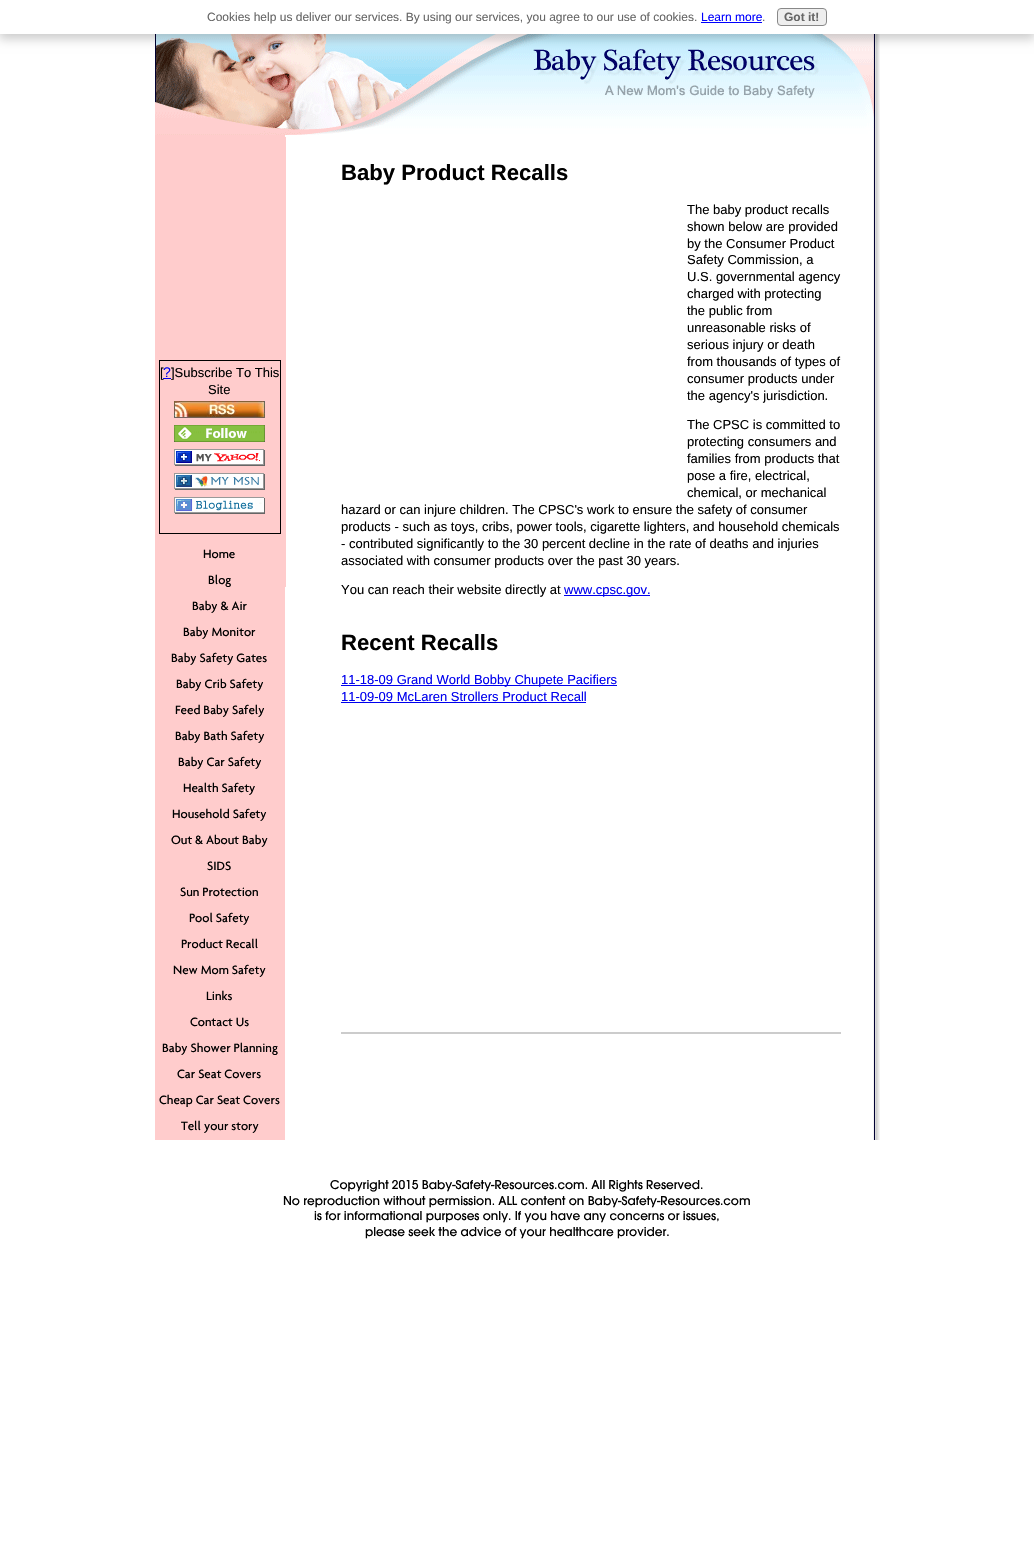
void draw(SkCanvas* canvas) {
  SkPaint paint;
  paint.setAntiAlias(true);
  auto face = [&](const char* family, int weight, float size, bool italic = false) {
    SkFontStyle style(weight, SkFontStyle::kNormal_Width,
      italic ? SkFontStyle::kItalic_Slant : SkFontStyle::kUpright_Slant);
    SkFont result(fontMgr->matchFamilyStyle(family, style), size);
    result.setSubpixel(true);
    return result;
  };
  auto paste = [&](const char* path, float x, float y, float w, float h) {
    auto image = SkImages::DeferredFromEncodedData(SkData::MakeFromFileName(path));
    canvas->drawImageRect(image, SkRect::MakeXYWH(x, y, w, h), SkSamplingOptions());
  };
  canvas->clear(0xffffffff);
  paste("img/2.png", 155, 34, 725, 101);
  paint.setColor(0x33000000);
  paint.setMaskFilter(SkMaskFilter::MakeBlur(kNormal_SkBlurStyle, 5));
  canvas->drawRect(SkRect::MakeXYWH(-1, 3, 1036, 36), paint);
  paint.setMaskFilter(nullptr);
  paint.setColor(0xffffffff);
  canvas->drawRect(SkRect::MakeXYWH(0, 0, 1034, 34), paint);
  paint.setColor(0xff0000ff);
  canvas->drawRect(SkRect::MakeXYWH(701, 22, 61, 1), paint);
  paint.setColor(0xffeeeeee);
  canvas->drawRoundRect(SkRect::MakeXYWH(777.5f, 8.5f, 49, 17), 3.5f, 3.5f, paint);
  paint.setStroke(true);
  paint.setStrokeWidth(1);
  paint.setColor(0xff888888);
  canvas->drawRoundRect(SkRect::MakeXYWH(777.5f, 8.5f, 49, 17), 3.5f, 3.5f, paint);
  paste("img/1.png", 155, 135, 725, 1005);
  paint.setStroke(false);
  paint.setColor(0xffffcccc);
  canvas->drawRect(SkRect::MakeXYWH(285, 137, 1, 450), paint);
  paint.setStroke(true);
  paint.setColor(0xff000000);
  canvas->drawRect(SkRect::MakeXYWH(159.5f, 360.5f, 121, 173), paint);
  paste("img/3.png", 174, 401, 91, 17);
  paste("img/4.png", 174, 425, 91, 17);
  paste("img/5.png", 174, 449, 91, 17);
  paste("img/6.png", 174, 473, 91, 17);
  paste("img/7.png", 174, 497, 91, 17);
  paint.setStroke(false);
  {
    const struct { float x, y, w, h; SkColor color; } items[] = {
      {564, 595, 86, 1, 0xff0000ee},
      {341, 685, 276, 1, 0xff0000ee},
      {341, 702, 245, 1, 0xff0000ee},
      {341, 1032, 500, 2, 0xffcccccc},
    };
    for (auto [x, y, w, h, color] : items) {
      paint.setColor(color);
      canvas->drawRect(SkRect::MakeXYWH(x, y, w, h), paint);
    }
  }
  auto f0 = face("Liberation Sans", 400, 12);
  paint.setColor(0xff666666);
  canvas->drawString("Cookies help us deliver our services. By using our services, you agree to our use of cookies.", 207, 21, f0, paint);
  paint.setColor(0xff0000ff);
  canvas->drawString("Learn more", 701, 21, f0, paint);
  paint.setColor(0xff666666);
  canvas->drawString(".", 762, 21, f0, paint);
  auto f1 = face("Liberation Sans", 700, 12);
  canvas->drawString("Got it!", 784, 21, f1, paint);
  auto f2 = face("Liberation Sans", 400, 13);
  paint.setColor(0xff000000);
  canvas->drawString("[", 160, 377, f2, paint);
  auto f3 = face("Liberation Sans", 400, 14);
  paint.setColor(0xff0000ee);
  canvas->drawString("?", 163, 377, f3, paint);
  canvas->drawRect(SkRect::MakeXYWH(163, 378, 8, 1), paint);
  paint.setColor(0xff000000);
  canvas->drawString("]Subscribe To This", 171, 377, f2, paint);
  canvas->drawString("Site", 208, 394, f2, paint);
  auto f4 = face("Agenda", 400, 13);
  {
    const struct { const char* s; float x, y; } items[] = {
      {"Home", 203, 558},
      {"Blog", 208, 584},
      {"Baby & Air", 192, 610},
      {"Baby Monitor", 183, 636},
      {"Baby Safety Gates", 171, 662},
      {"Baby Crib Safety", 176, 688},
      {"Feed Baby Safely", 175, 714},
      {"Baby Bath Safety", 175, 740},
      {"Baby Car Safety", 178, 766},
      {"Health Safety", 183, 792},
      {"Household Safety", 172, 818},
      {"Out & About Baby", 171, 844},
      {"SIDS", 207, 870},
      {"Sun Protection", 180, 896},
      {"Pool Safety", 189, 922},
      {"Product Recall", 181, 948},
      {"New Mom Safety", 173, 974},
      {"Links", 206, 1000},
      {"Contact Us", 190, 1026},
      {"Baby Shower Planning", 162, 1052},
      {"Car Seat Covers", 177, 1078},
      {"Cheap Car Seat Covers", 159, 1104},
      {"Tell your story", 181, 1130},
    };
    for (auto [s, x, y] : items) {
      canvas->drawString(s, x, y, f4, paint);
    }
  }
  auto f5 = face("Liberation Sans", 700, 22.1f);
  canvas->drawString("Baby Product Recalls", 341, 180, f5, paint);
  {
    const struct { const char* s; float x, y; } items[] = {
      {"The baby product recalls", 687, 214},
      {"shown below are provided", 687, 231},
      {"by the Consumer Product", 687, 248},
      {"Safety Commission, a", 687, 264},
      {"U.S. governmental agency", 687, 281},
      {"charged with protecting", 687, 298},
      {"the public from", 687, 315},
      {"unreasonable risks of", 687, 332},
      {"serious injury or death", 687, 349},
      {"from thousands of types of", 687, 366},
      {"consumer products under", 687, 383},
      {"the agency's jurisdiction.", 687, 400},
      {"The CPSC is committed to", 687, 429},
      {"protecting consumers and", 687, 446},
      {"families from products that", 687, 463},
      {"pose a fire, electrical,", 687, 480},
      {"chemical, or mechanical", 687, 497},
      {"hazard or can injure children. The CPSC's work to ensure the safety of consumer", 341, 514},
      {"products - such as toys, cribs, power tools, cigarette lighters, and household chemicals", 341, 531},
      {"- contributed significantly to the 30 percent decline in the rate of deaths and injuries", 341, 548},
      {"associated with consumer products over the past 30 years.", 341, 565},
      {"You can reach their website directly at", 341, 594},
    };
    for (auto [s, x, y] : items) {
      canvas->drawString(s, x, y, f2, paint);
    }
  }
  paint.setColor(0xff0000ee);
  canvas->drawString("www.cpsc.gov.", 564, 594, f2, paint);
  paint.setColor(0xff000000);
  canvas->drawString("Recent Recalls", 341, 650, f5, paint);
  paint.setColor(0xff0000ee);
  canvas->drawString("11-18-09 Grand World Bobby Chupete Pacifiers", 341, 684, f2, paint);
  canvas->drawString("11-09-09 McLaren Strollers Product Recall", 341, 701, f2, paint);
  auto f6 = face("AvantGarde", 400, 12);
  paint.setColor(0xff000000);
  {
    const struct { const char* s; float x, y; } items[] = {
      {"Copyright 2015 Baby-Safety-Resources.com. All Rights Reserved.", 330, 1189},
      {"No reproduction without permission. ALL content on Baby-Safety-Resources.com", 283, 1205},
      {"is for informational purposes only. If you have any concerns or issues,", 314, 1220},
      {"please seek the advice of your healthcare provider.", 365, 1236},
    };
    for (auto [s, x, y] : items) {
      canvas->drawString(s, x, y, f6, paint);
    }
  }
}
